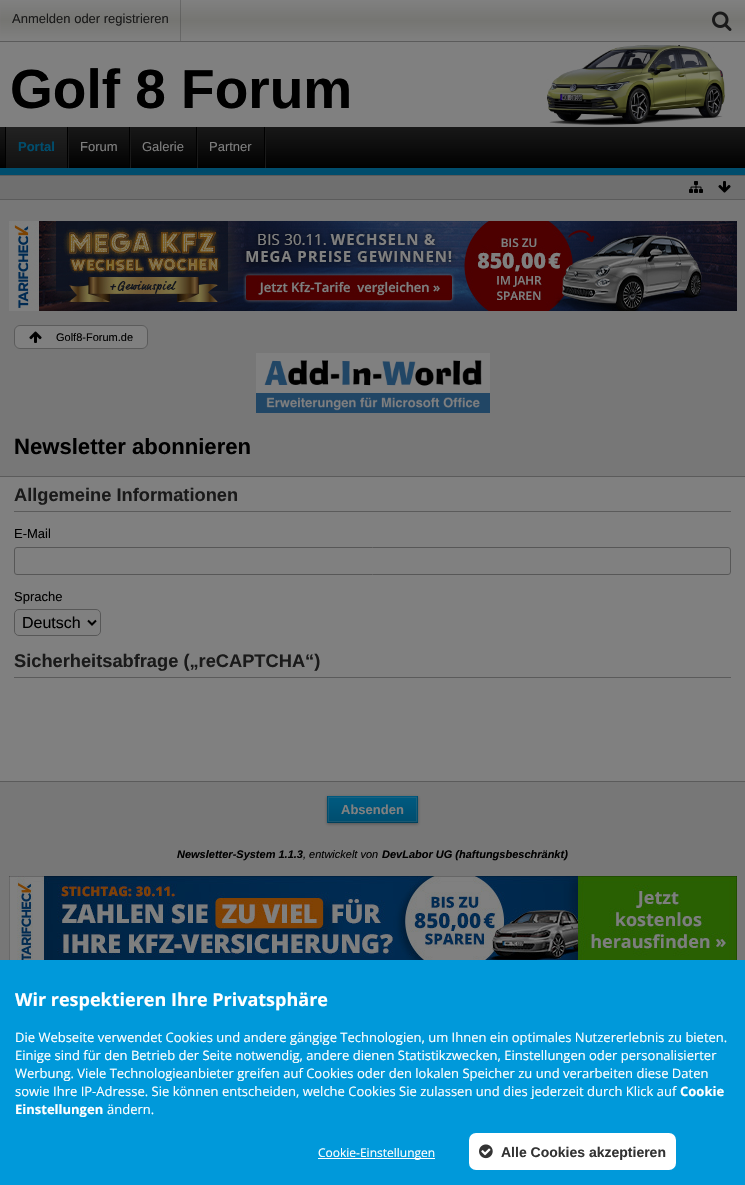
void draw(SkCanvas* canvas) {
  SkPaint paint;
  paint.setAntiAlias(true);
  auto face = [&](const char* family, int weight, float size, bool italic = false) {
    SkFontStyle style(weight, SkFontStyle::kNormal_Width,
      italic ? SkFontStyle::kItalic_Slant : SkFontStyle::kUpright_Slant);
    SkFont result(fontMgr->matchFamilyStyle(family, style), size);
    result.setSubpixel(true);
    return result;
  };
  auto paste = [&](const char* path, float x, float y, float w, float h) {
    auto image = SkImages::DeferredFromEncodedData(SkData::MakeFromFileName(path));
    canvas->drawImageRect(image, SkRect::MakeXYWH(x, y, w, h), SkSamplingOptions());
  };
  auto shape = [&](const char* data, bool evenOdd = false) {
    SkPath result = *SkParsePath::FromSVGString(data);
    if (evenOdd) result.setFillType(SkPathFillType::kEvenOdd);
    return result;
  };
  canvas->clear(0xff777777);
  paint.setColor(0xff808080);
  canvas->drawRect(SkRect::MakeXYWH(0, 42, 745, 85), paint);
  paint.setColor(0xff5b5b5b);
  canvas->drawRect(SkRect::MakeXYWH(0, 41, 745, 1), paint);
  {
    const SkColor colors[] = {0xff808080, 0xff757572, 0xff808080};
    const float stops[] = {0, 0.5f, 1};
    const SkPoint ends[] = {{373, 0}, {373, 41}};
    paint.setShader(SkGradientShader::MakeLinear(ends, colors, stops, 3, SkTileMode::kClamp));
    paint.setAlpha(255);
  }
  canvas->drawRect(SkRect::MakeXYWH(1, 0, 744, 41), paint);
  {
    const SkColor colors[] = {0xff696969, 0xff60605e, 0xff696969};
    const float stops[] = {0, 0.5f, 1};
    const SkPoint ends[] = {{373, 0}, {373, 41}};
    paint.setShader(SkGradientShader::MakeLinear(ends, colors, stops, 3, SkTileMode::kClamp));
    paint.setAlpha(255);
  }
  canvas->drawRect(SkRect::MakeXYWH(180, 0, 1, 41), paint);
  {
    const SkColor colors[] = {0xff808080, 0xff777674, 0xff808080};
    const float stops[] = {0, 0.5f, 1};
    const SkPoint ends[] = {{373, 0}, {373, 41}};
    paint.setShader(SkGradientShader::MakeLinear(ends, colors, stops, 3, SkTileMode::kClamp));
    paint.setAlpha(255);
  }
  canvas->drawRect(SkRect::MakeXYWH(0, 0, 1, 41), paint);
  paste("img/1.png", 712, 11, 20, 20);
  paste("img/2.png", 547, 45, 178, 80);
  {
    const SkColor colors[] = {0xff181818, 0xff010101};
    const float stops[] = {0, 1};
    const SkPoint ends[] = {{373, 127}, {373, 168}};
    paint.setShader(SkGradientShader::MakeLinear(ends, colors, stops, 2, SkTileMode::kClamp));
    paint.setAlpha(255);
  }
  canvas->drawRect(SkRect::MakeXYWH(0, 127, 745, 41), paint);
  paint.setShader(nullptr);
  paint.setColor(0xff000000);
  canvas->drawRect(SkRect::MakeXYWH(5, 127, 1, 41), paint);
  {
    const SkColor colors[] = {0xff222222, 0xff111111};
    const float stops[] = {0, 1};
    const SkPoint ends[] = {{37, 127}, {37, 168}};
    paint.setShader(SkGradientShader::MakeLinear(ends, colors, stops, 2, SkTileMode::kClamp));
    paint.setAlpha(255);
  }
  canvas->drawRect(SkRect::MakeXYWH(6, 127, 61, 41), paint);
  paint.setShader(nullptr);
  paint.setColor(0xff000000);
  canvas->drawRect(SkRect::MakeXYWH(67, 127, 1, 41), paint);
  {
    const SkColor colors[] = {0x03808080, 0x33808080};
    const float stops[] = {0, 1};
    const SkPoint ends[] = {{69, 127}, {69, 168}};
    paint.setShader(SkGradientShader::MakeLinear(ends, colors, stops, 2, SkTileMode::kClamp));
    paint.setAlpha(255);
  }
  canvas->drawRect(SkRect::MakeXYWH(68, 127, 1, 41), paint);
  paint.setShader(nullptr);
  paint.setColor(0xff000000);
  canvas->drawRect(SkRect::MakeXYWH(129, 127, 1, 41), paint);
  {
    const SkColor colors[] = {0x03808080, 0x33808080};
    const float stops[] = {0, 1};
    const SkPoint ends[] = {{131, 127}, {131, 168}};
    paint.setShader(SkGradientShader::MakeLinear(ends, colors, stops, 2, SkTileMode::kClamp));
    paint.setAlpha(255);
  }
  canvas->drawRect(SkRect::MakeXYWH(130, 127, 1, 41), paint);
  paint.setShader(nullptr);
  paint.setColor(0xff000000);
  canvas->drawRect(SkRect::MakeXYWH(196, 127, 1, 41), paint);
  {
    const SkColor colors[] = {0x03808080, 0x33808080};
    const float stops[] = {0, 1};
    const SkPoint ends[] = {{198, 127}, {198, 168}};
    paint.setShader(SkGradientShader::MakeLinear(ends, colors, stops, 2, SkTileMode::kClamp));
    paint.setAlpha(255);
  }
  canvas->drawRect(SkRect::MakeXYWH(197, 127, 1, 41), paint);
  paint.setShader(nullptr);
  paint.setColor(0xff000000);
  canvas->drawRect(SkRect::MakeXYWH(264, 127, 1, 41), paint);
  {
    const SkColor colors[] = {0x03808080, 0x33808080};
    const float stops[] = {0, 1};
    const SkPoint ends[] = {{266, 127}, {266, 168}};
    paint.setShader(SkGradientShader::MakeLinear(ends, colors, stops, 2, SkTileMode::kClamp));
    paint.setAlpha(255);
  }
  canvas->drawRect(SkRect::MakeXYWH(265, 127, 1, 41), paint);
  paint.setShader(nullptr);
  {
    const struct { float x, y, w, h; SkColor color; } items[] = {
      {0, 168, 745, 7, 0xff004d6d},
      {0, 176, 745, 23, 0xff6f6f6f},
      {0, 175, 745, 1, 0xff5b5b5b},
      {0, 199, 745, 1, 0xff5b5b5b},
    };
    for (auto [x, y, w, h, color] : items) {
      paint.setColor(color);
      canvas->drawRect(SkRect::MakeXYWH(x, y, w, h), paint);
    }
  }
  paste("img/3.png", 689, 181, 14, 12);
  paste("img/4.png", 718, 181, 13, 12);
  paste("img/5.png", 9, 221, 728, 90);
  paint.setColor(0xff808080);
  canvas->drawRoundRect(SkRect::MakeXYWH(14.5f, 325.5f, 133, 23), 5.5f, 5.5f, paint);
  paint.setStroke(true);
  paint.setStrokeWidth(1);
  paint.setColor(0xff5b5b5b);
  canvas->drawRoundRect(SkRect::MakeXYWH(14.5f, 325.5f, 133, 23), 5.5f, 5.5f, paint);
  paste("img/6.png", 29, 331, 13, 12);
  paste("img/7.png", 256, 353, 234, 60);
  paint.setStroke(false);
  {
    const struct { float x, y, w, h; SkColor color; } items[] = {
      {0, 477, 745, 304, 0xff808080},
      {0, 476, 745, 1, 0xff5b5b5b},
      {0, 781, 745, 1, 0xff5b5b5b},
      {14, 511, 717, 1, 0xff5b5b5b},
    };
    for (auto [x, y, w, h, color] : items) {
      paint.setColor(color);
      canvas->drawRect(SkRect::MakeXYWH(x, y, w, h), paint);
    }
  }
  paint.setStroke(true);
  paint.setColor(0xff575757);
  canvas->drawRoundRect(SkRect::MakeXYWH(14.5f, 547.5f, 716, 27), 2.5f, 2.5f, paint);
  canvas->drawRoundRect(SkRect::MakeXYWH(14.5f, 609.5f, 86, 26), 4.5f, 4.5f, paint);
  paint.setStrokeWidth(2);
  paint.setColor(0xff000000);
  canvas->drawPath(shape("M88 620.5L92 624.5L96 620.5"), paint);
  paint.setStroke(false);
  paint.setColor(0xff5b5b5b);
  canvas->drawRect(SkRect::MakeXYWH(14, 677, 717, 1), paint);
  paint.setColor(0x4d000000);
  paint.setMaskFilter(SkMaskFilter::MakeBlur(kNormal_SkBlurStyle, 1.5f));
  canvas->drawRect(SkRect::MakeXYWH(327, 797, 91, 27), paint);
  paint.setMaskFilter(nullptr);
  {
    const SkColor colors[] = {0xff005a80, 0xff004d6e};
    const float stops[] = {0, 1};
    const SkPoint ends[] = {{373, 797}, {373, 822}};
    paint.setShader(SkGradientShader::MakeLinear(ends, colors, stops, 2, SkTileMode::kClamp));
    paint.setAlpha(255);
  }
  canvas->drawRect(SkRect::MakeXYWH(328, 797, 89, 25), paint);
  paint.setStroke(true);
  paint.setStrokeWidth(1);
  paint.setShader(nullptr);
  paint.setColor(0x33808080);
  canvas->drawRect(SkRect::MakeXYWH(328.5f, 797.5f, 88, 24), paint);
  paint.setStroke(false);
  {
    const struct { float x, y, w, h; SkColor color; } items[] = {
      {327, 796, 91, 1, 0xff00597f},
      {417, 796, 1, 27, 0xff004d6d},
      {327, 822, 91, 1, 0xff00405b},
      {327, 796, 1, 27, 0xff004d6d},
    };
    for (auto [x, y, w, h, color] : items) {
      paint.setColor(color);
      canvas->drawRect(SkRect::MakeXYWH(x, y, w, h), paint);
    }
  }
  paste("img/8.png", 9, 876, 728, 84);
  paint.setColor(0xff0099da);
  canvas->drawRect(SkRect::MakeXYWH(0, 960, 745, 225), paint);
  paint.setColor(0xffffffff);
  canvas->drawRect(SkRect::MakeXYWH(318, 1158, 117, 1), paint);
  canvas->drawRoundRect(SkRect::MakeXYWH(469, 1133, 207, 37), 7, 7, paint);
  paste("img/9.png", 479, 1144, 14, 15);
  auto f0 = face("Liberation Sans", 400, 13);
  paint.setColor(0xff1a1a1a);
  canvas->drawString("Anmelden oder registrieren", 12, 23, f0, paint);
  auto f1 = face("Liberation Sans", 700, 55);
  paint.setColor(0xff000000);
  canvas->drawString("Golf 8 Forum", 10, 108, f1, paint);
  auto f2 = face("Liberation Sans", 700, 13);
  paint.setColor(0xff004d6d);
  canvas->drawString("Portal", 18, 151, f2, paint);
  paint.setColor(0xff808080);
  {
    const struct { const char* s; float x, y; } items[] = {
      {"Forum", 80, 151},
      {"Galerie", 142, 151},
      {"Partner", 209, 151},
    };
    for (auto [s, x, y] : items) {
      canvas->drawString(s, x, y, f0, paint);
    }
  }
  auto f3 = face("Liberation Sans", 400, 11);
  paint.setColor(0xff000000);
  canvas->drawString("Golf8-Forum.de", 56, 341, f3, paint);
  auto f4 = face("Liberation Sans", 700, 22.1f);
  canvas->drawString("Newsletter abonnieren", 14, 454, f4, paint);
  auto f5 = face("Liberation Sans", 700, 18.25f);
  paint.setColor(0xff1a1a1a);
  canvas->drawString("Allgemeine Informationen", 14, 501, f5, paint);
  paint.setColor(0xff000000);
  canvas->drawString("E-Mail", 14, 538, f0, paint);
  canvas->drawString("Sprache", 14, 601, f0, paint);
  auto f6 = face("Liberation Sans", 400, 16);
  canvas->drawString("Deutsch", 22, 628, f6, paint);
  paint.setColor(0xff1a1a1a);
  canvas->drawString("Sicherheitsabfrage („reCAPTCHA“)", 14, 667, f5, paint);
  paint.setColor(0xff808080);
  canvas->drawString("Absenden", 341, 814, f2, paint);
  auto f7 = face("Liberation Sans", 700, 11, true);
  paint.setColor(0xff000000);
  canvas->drawString("Newsletter-System 1.1.3", 177, 858, f7, paint);
  auto f8 = face("Liberation Sans", 400, 11, true);
  canvas->drawString(", entwickelt von", 303, 858, f8, paint);
  canvas->drawString("DevLabor UG (haftungsbeschränkt)", 382, 858, f7, paint);
  auto f9 = face("Open Sans", 700, 18);
  paint.setColor(0xffffffff);
  canvas->drawString("Wir respektieren Ihre Privatsphäre", 15, 1006, f9, paint);
  auto f10 = face("Open Sans", 400, 13);
  {
    const struct { const char* s; float x, y; } items[] = {
      {"Die Webseite verwendet Cookies und andere gängige Technologien, um Ihnen ein optimales Nutzererlebnis zu bieten.", 15, 1042},
      {"Einige sind für den Betrieb der Seite notwendig, andere dienen Statistikzwecken, Einstellungen oder personalisierter", 15, 1060},
      {"Werbung. Viele Technologieanbieter greifen auf Cookies oder den lokalen Speicher zu und verarbeiten diese Daten", 15, 1078},
      {"sowie Ihre IP-Adresse. Sie können entscheiden, welche Cookies Sie zulassen und dies jederzeit durch Klick auf", 15, 1096},
    };
    for (auto [s, x, y] : items) {
      canvas->drawString(s, x, y, f10, paint);
    }
  }
  auto f11 = face("Open Sans", 700, 13);
  canvas->drawString("Cookie", 680, 1096, f11, paint);
  canvas->drawString("Einstellungen", 15, 1114, f11, paint);
  canvas->drawString("ändern.", 107, 1114, f10, paint);
  auto f12 = face("Open Sans", 400, 12);
  canvas->drawString("Cookie-Einstellungen", 318, 1157, f12, paint);
  auto f13 = face("Liberation Sans", 700, 14);
  paint.setColor(0xff333333);
  canvas->drawString("Alle Cookies akzeptieren", 501, 1157, f13, paint);
}
